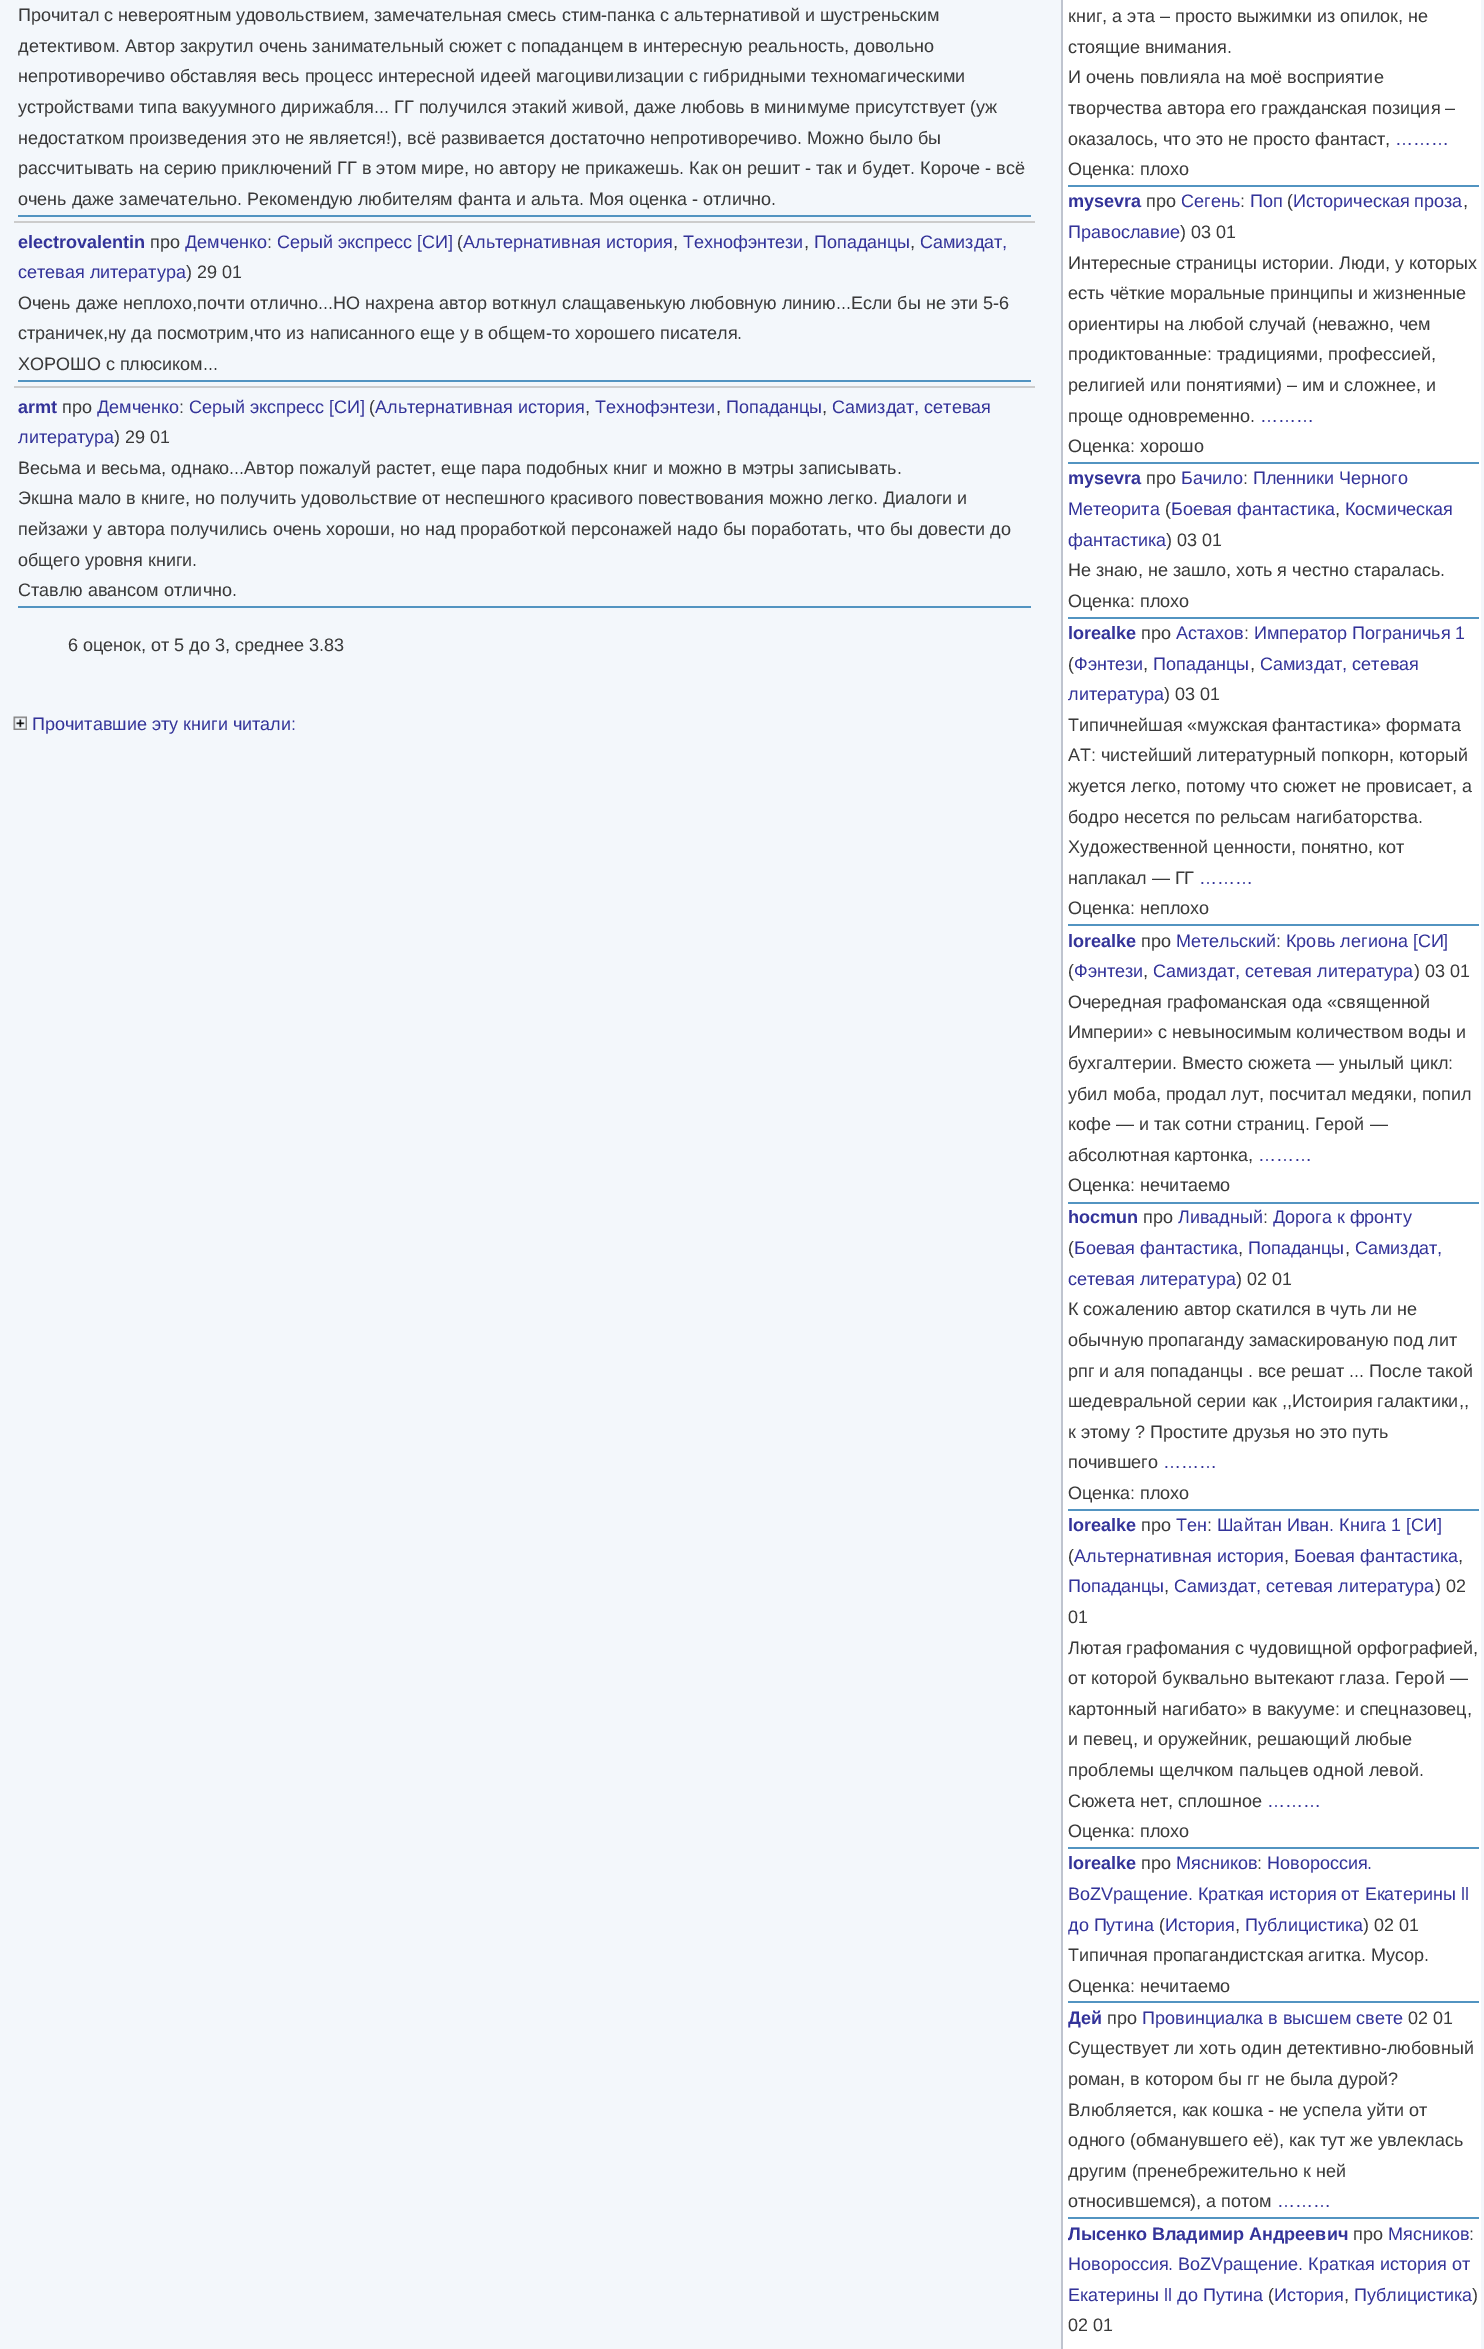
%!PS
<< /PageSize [1484 2349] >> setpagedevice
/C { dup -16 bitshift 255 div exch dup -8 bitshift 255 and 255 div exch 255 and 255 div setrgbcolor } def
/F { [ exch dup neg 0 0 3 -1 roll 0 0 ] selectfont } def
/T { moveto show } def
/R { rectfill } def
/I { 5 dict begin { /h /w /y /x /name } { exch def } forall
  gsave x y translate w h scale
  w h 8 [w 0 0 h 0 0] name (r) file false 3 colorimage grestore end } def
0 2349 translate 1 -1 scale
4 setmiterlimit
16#F3F7FB C
0 0 1484 2349 R
/LiberationSans-Regular 18 F
16#393939 C
(Прочитал с невероятным удовольствием, замечательная смесь стим-панка с альтернативой и шустреньским) 18 21 T
(детективом. Автор закрутил очень занимательный сюжет с попаданцем в интересную реальность, довольно) 18 52 T
(непротиворечиво обставляя весь процесс интересной идеей магоцивилизации с гибридными техномагическими) 18 82 T
(устройствами типа вакуумного дирижабля... ГГ получился этакий живой, даже любовь в минимуме присутствует \(уж) 18 113 T
(недостатком произведения это не является!\), всё развивается достаточно непротиворечиво. Можно было бы) 18 144 T
(рассчитывать на серию приключений ГГ в этом мире, но автору не прикажешь. Как он решит - так и будет. Короче - всё) 18 174 T
(очень даже замечательно. Рекомендую любителям фанта и альта. Моя оценка - отлично.) 18 205 T
16#5294C1 C
18 215 1013 2 R
16#CCCCCC C
14 221 1021 2 R
/LiberationSans-Bold 18 F
16#333399 C
(electrovalentin) 18 248 T
/LiberationSans-Regular 18 F
16#393939 C
(про) 150 248 T
16#333399 C
(Демченко) 185 248 T
16#393939 C
(:) 267 248 T
16#333399 C
(Серый экспресс [СИ]) 277 248 T
16#393939 C
(\() 457 248 T
16#333399 C
(Альтернативная история) 463 248 T
(Технофэнтези) 683 248 T
(Попаданцы) 814 248 T
(Самиздат,) 920 248 T
16#393939 C
(,) 673 248 T
(,) 804 248 T
(,) 910 248 T
16#333399 C
(сетевая литература) 18 278 T
16#393939 C
(\) 29 01) 186 278 T
(Очень даже неплохо,почти отлично...НО нахрена автор воткнул слащавенькую любовную линию...Если бы не эти 5-6) 18 309 T
(страничек,ну да посмотрим,что из написанного еще у в общем-то хорошего писателя.) 18 339 T
(ХОРОШО с плюсиком...) 18 370 T
16#5294C1 C
18 380 1013 2 R
16#CCCCCC C
14 386 1021 2 R
/LiberationSans-Bold 18 F
16#333399 C
(armt) 18 413 T
/LiberationSans-Regular 18 F
16#393939 C
(про) 62 413 T
16#333399 C
(Демченко) 97 413 T
16#393939 C
(:) 179 413 T
16#333399 C
(Серый экспресс [СИ]) 189 413 T
16#393939 C
(\() 369 413 T
16#333399 C
(Альтернативная история) 375 413 T
(Технофэнтези) 595 413 T
(Попаданцы) 726 413 T
(Самиздат, сетевая) 832 413 T
16#393939 C
(,) 585 413 T
(,) 716 413 T
(,) 822 413 T
16#333399 C
(литература) 18 443 T
16#393939 C
(\) 29 01) 114 443 T
(Весьма и весьма, однако...Автор пожалуй растет, еще пара подобных книг и можно в мэтры записывать.) 18 474 T
(Экшна мало в книге, но получить удовольствие от неспешного красивого повествования можно легко. Диалоги и) 18 504 T
(пейзажи у автора получились очень хороши, но над проработкой персонажей надо бы поработать, что бы довести до) 18 535 T
(общего уровня книги.) 18 566 T
(Ставлю авансом отлично.) 18 596 T
16#5294C1 C
18 606 1013 2 R
16#393939 C
(6 оценок, от 5 до 3, среднее 3.83) 68 651 T
(1.rgb) 13 716 14 14 I
16#333399 C
(Прочитавшие эту книги читали:) 32 730 T
16#FFFFFF C
1063 0 418 2349 R
16#BFC4CF C
1061 0 2 2349 R
16#393939 C
(книг, а эта – просто выжимки из опилок, не) 1068 22 T
(стоящие внимания.) 1068 53 T
(И очень повлияла на моё восприятие) 1068 83 T
(творчества автора его гражданская позиция –) 1068 114 T
(оказалось, что это не просто фантаст,) 1068 145 T
16#333399 C
(………) 1395 145 T
16#393939 C
(Оценка: плохо) 1068 175 T
16#5294C1 C
1068 185 411 2 R
/LiberationSans-Bold 18 F
16#333399 C
(mysevra) 1068 207 T
/LiberationSans-Regular 18 F
16#393939 C
(про) 1146 207 T
16#333399 C
(Сегень) 1181 207 T
16#393939 C
(:) 1240 207 T
16#333399 C
(Поп) 1250 207 T
16#393939 C
(\() 1287 207 T
16#333399 C
(Историческая проза) 1293 207 T
16#393939 C
(,) 1463 207 T
16#333399 C
(Православие) 1068 238 T
16#393939 C
(\) 03 01) 1180 238 T
(Интересные страницы истории. Люди, у которых) 1068 269 T
(есть чёткие моральные принципы и жизненные) 1068 299 T
(ориентиры на любой случай \(неважно, чем) 1068 330 T
(продиктованные: традициями, профессией,) 1068 360 T
(религией или понятиями\) – им и сложнее, и) 1068 391 T
(проще одновременно.) 1068 422 T
16#333399 C
(………) 1260 422 T
16#393939 C
(Оценка: хорошо) 1068 452 T
16#5294C1 C
1068 462 411 2 R
/LiberationSans-Bold 18 F
16#333399 C
(mysevra) 1068 484 T
/LiberationSans-Regular 18 F
16#393939 C
(про) 1146 484 T
16#333399 C
(Бачило) 1181 484 T
16#393939 C
(:) 1243 484 T
16#333399 C
(Пленники Черного) 1253 484 T
(Метеорита) 1068 515 T
16#393939 C
(\() 1165 515 T
16#333399 C
(Боевая фантастика) 1171 515 T
16#393939 C
(,) 1335 515 T
16#333399 C
(Космическая) 1345 515 T
(фантастика) 1068 546 T
16#393939 C
(\) 03 01) 1166 546 T
(Не знаю, не зашло, хоть я честно старалась.) 1068 576 T
(Оценка: плохо) 1068 607 T
16#5294C1 C
1068 617 411 2 R
/LiberationSans-Bold 18 F
16#333399 C
(lorealke) 1068 639 T
/LiberationSans-Regular 18 F
16#393939 C
(про) 1141 639 T
16#333399 C
(Астахов) 1176 639 T
16#393939 C
(:) 1244 639 T
16#333399 C
(Император Пограничья 1) 1254 639 T
16#393939 C
(\() 1068 670 T
16#333399 C
(Фэнтези) 1074 670 T
16#393939 C
(,) 1143 670 T
16#333399 C
(Попаданцы) 1153 670 T
16#393939 C
(,) 1250 670 T
16#333399 C
(Самиздат, сетевая) 1260 670 T
(литература) 1068 700 T
16#393939 C
(\) 03 01) 1164 700 T
(Типичнейшая «мужская фантастика» формата) 1068 731 T
(АТ: чистейший литературный попкорн, который) 1068 761 T
(жуется легко, потому что сюжет не провисает, а) 1068 792 T
(бодро несется по рельсам нагибаторства.) 1068 823 T
(Художественной ценности, понятно, кот) 1068 853 T
(наплакал — ГГ) 1068 884 T
16#333399 C
(………) 1199 884 T
16#393939 C
(Оценка: неплохо) 1068 914 T
16#5294C1 C
1068 924 411 2 R
/LiberationSans-Bold 18 F
16#333399 C
(lorealke) 1068 947 T
/LiberationSans-Regular 18 F
16#393939 C
(про) 1141 947 T
16#333399 C
(Метельский) 1176 947 T
16#393939 C
(:) 1276 947 T
16#333399 C
(Кровь легиона [СИ]) 1286 947 T
16#393939 C
(\() 1068 977 T
16#333399 C
(Фэнтези) 1074 977 T
16#393939 C
(,) 1143 977 T
16#333399 C
(Самиздат, сетевая литература) 1153 977 T
16#393939 C
(\) 03 01) 1414 977 T
(Очередная графоманская ода «священной) 1068 1008 T
(Империи» с невыносимым количеством воды и) 1068 1038 T
(бухгалтерии. Вместо сюжета — унылый цикл:) 1068 1069 T
(убил моба, продал лут, посчитал медяки, попил) 1068 1100 T
(кофе — и так сотни страниц. Герой —) 1068 1130 T
(абсолютная картонка,) 1068 1161 T
16#333399 C
(………) 1258 1161 T
16#393939 C
(Оценка: нечитаемо) 1068 1191 T
16#5294C1 C
1068 1202 411 2 R
/LiberationSans-Bold 18 F
16#333399 C
(hocmun) 1068 1223 T
/LiberationSans-Regular 18 F
16#393939 C
(про) 1143 1223 T
16#333399 C
(Ливадный) 1178 1223 T
16#393939 C
(:) 1263 1223 T
16#333399 C
(Дорога к фронту) 1273 1223 T
16#393939 C
(\() 1068 1254 T
16#333399 C
(Боевая фантастика) 1074 1254 T
16#393939 C
(,) 1238 1254 T
16#333399 C
(Попаданцы) 1248 1254 T
16#393939 C
(,) 1345 1254 T
16#333399 C
(Самиздат,) 1355 1254 T
(сетевая литература) 1068 1285 T
16#393939 C
(\) 02 01) 1236 1285 T
(К сожалению автор скатился в чуть ли не) 1068 1315 T
(обычную пропаганду замаскированую под лит) 1068 1346 T
(рпг и аля попаданцы . все решат ... После такой) 1068 1377 T
(шедевральной серии как ,,Истоирия галактики,,) 1068 1407 T
(к этому ? Простите друзья но это путь) 1068 1438 T
(почившего) 1068 1468 T
16#333399 C
(………) 1163 1468 T
16#393939 C
(Оценка: плохо) 1068 1499 T
16#5294C1 C
1068 1509 411 2 R
/LiberationSans-Bold 18 F
16#333399 C
(lorealke) 1068 1531 T
/LiberationSans-Regular 18 F
16#393939 C
(про) 1141 1531 T
16#333399 C
(Тен) 1176 1531 T
16#393939 C
(:) 1207 1531 T
16#333399 C
(Шайтан Иван. Книга 1 [СИ]) 1217 1531 T
16#393939 C
(\() 1068 1562 T
16#333399 C
(Альтернативная история) 1074 1562 T
16#393939 C
(,) 1284 1562 T
16#333399 C
(Боевая фантастика) 1294 1562 T
16#393939 C
(,) 1458 1562 T
16#333399 C
(Попаданцы) 1068 1592 T
16#393939 C
(,) 1164 1592 T
16#333399 C
(Самиздат, сетевая литература) 1174 1592 T
16#393939 C
(\) 02) 1435 1592 T
(01) 1068 1623 T
(Лютая графомания с чудовищной орфографией,) 1068 1654 T
(от которой буквально вытекают глаза. Герой —) 1068 1684 T
(картонный нагибато» в вакууме: и спецназовец,) 1068 1715 T
(и певец, и оружейник, решающий любые) 1068 1745 T
(проблемы щелчком пальцев одной левой.) 1068 1776 T
(Сюжета нет, сплошное) 1068 1807 T
16#333399 C
(………) 1267 1807 T
16#393939 C
(Оценка: плохо) 1068 1837 T
16#5294C1 C
1068 1847 411 2 R
/LiberationSans-Bold 18 F
16#333399 C
(lorealke) 1068 1869 T
/LiberationSans-Regular 18 F
16#393939 C
(про) 1141 1869 T
16#333399 C
(Мясников) 1176 1869 T
16#393939 C
(:) 1257 1869 T
16#333399 C
(Новороссия.) 1267 1869 T
(ВоZVращение. Краткая история от Екатерины ll) 1068 1900 T
(до Путина) 1068 1931 T
16#393939 C
(\() 1159 1931 T
16#333399 C
(История) 1165 1931 T
16#393939 C
(,) 1235 1931 T
16#333399 C
(Публицистика) 1245 1931 T
16#393939 C
(\) 02 01) 1363 1931 T
(Типичная пропагандистская агитка. Мусор.) 1068 1961 T
(Оценка: нечитаемо) 1068 1992 T
16#5294C1 C
1068 2001 411 2 R
/LiberationSans-Bold 18 F
16#333399 C
(Дей) 1068 2024 T
/LiberationSans-Regular 18 F
16#393939 C
(про) 1107 2024 T
16#333399 C
(Провинциалка в высшем свете) 1142 2024 T
16#393939 C
(02 01) 1408 2024 T
(Существует ли хоть один детективно-любовный) 1068 2054 T
(роман, в котором бы гг не была дурой?) 1068 2085 T
(Влюбляется, как кошка - не успела уйти от) 1068 2116 T
(одного \(обманувшего её\), как тут же увлеклась) 1068 2146 T
(другим \(пренебрежительно к ней) 1068 2177 T
(относившемся\), а потом) 1068 2207 T
16#333399 C
(………) 1277 2207 T
16#5294C1 C
1068 2217 411 2 R
/LiberationSans-Bold 18 F
16#333399 C
(Лысенко Владимир Андреевич) 1068 2240 T
/LiberationSans-Regular 18 F
16#393939 C
(про) 1353 2240 T
16#333399 C
(Мясников) 1388 2240 T
16#393939 C
(:) 1469 2240 T
16#333399 C
(Новороссия. ВоZVращение. Краткая история от) 1068 2270 T
(Екатерины ll до Путина) 1068 2301 T
16#393939 C
(\() 1268 2301 T
16#333399 C
(История) 1274 2301 T
16#393939 C
(,) 1344 2301 T
16#333399 C
(Публицистика) 1354 2301 T
16#393939 C
(\)) 1472 2301 T
(02 01) 1068 2331 T
showpage
